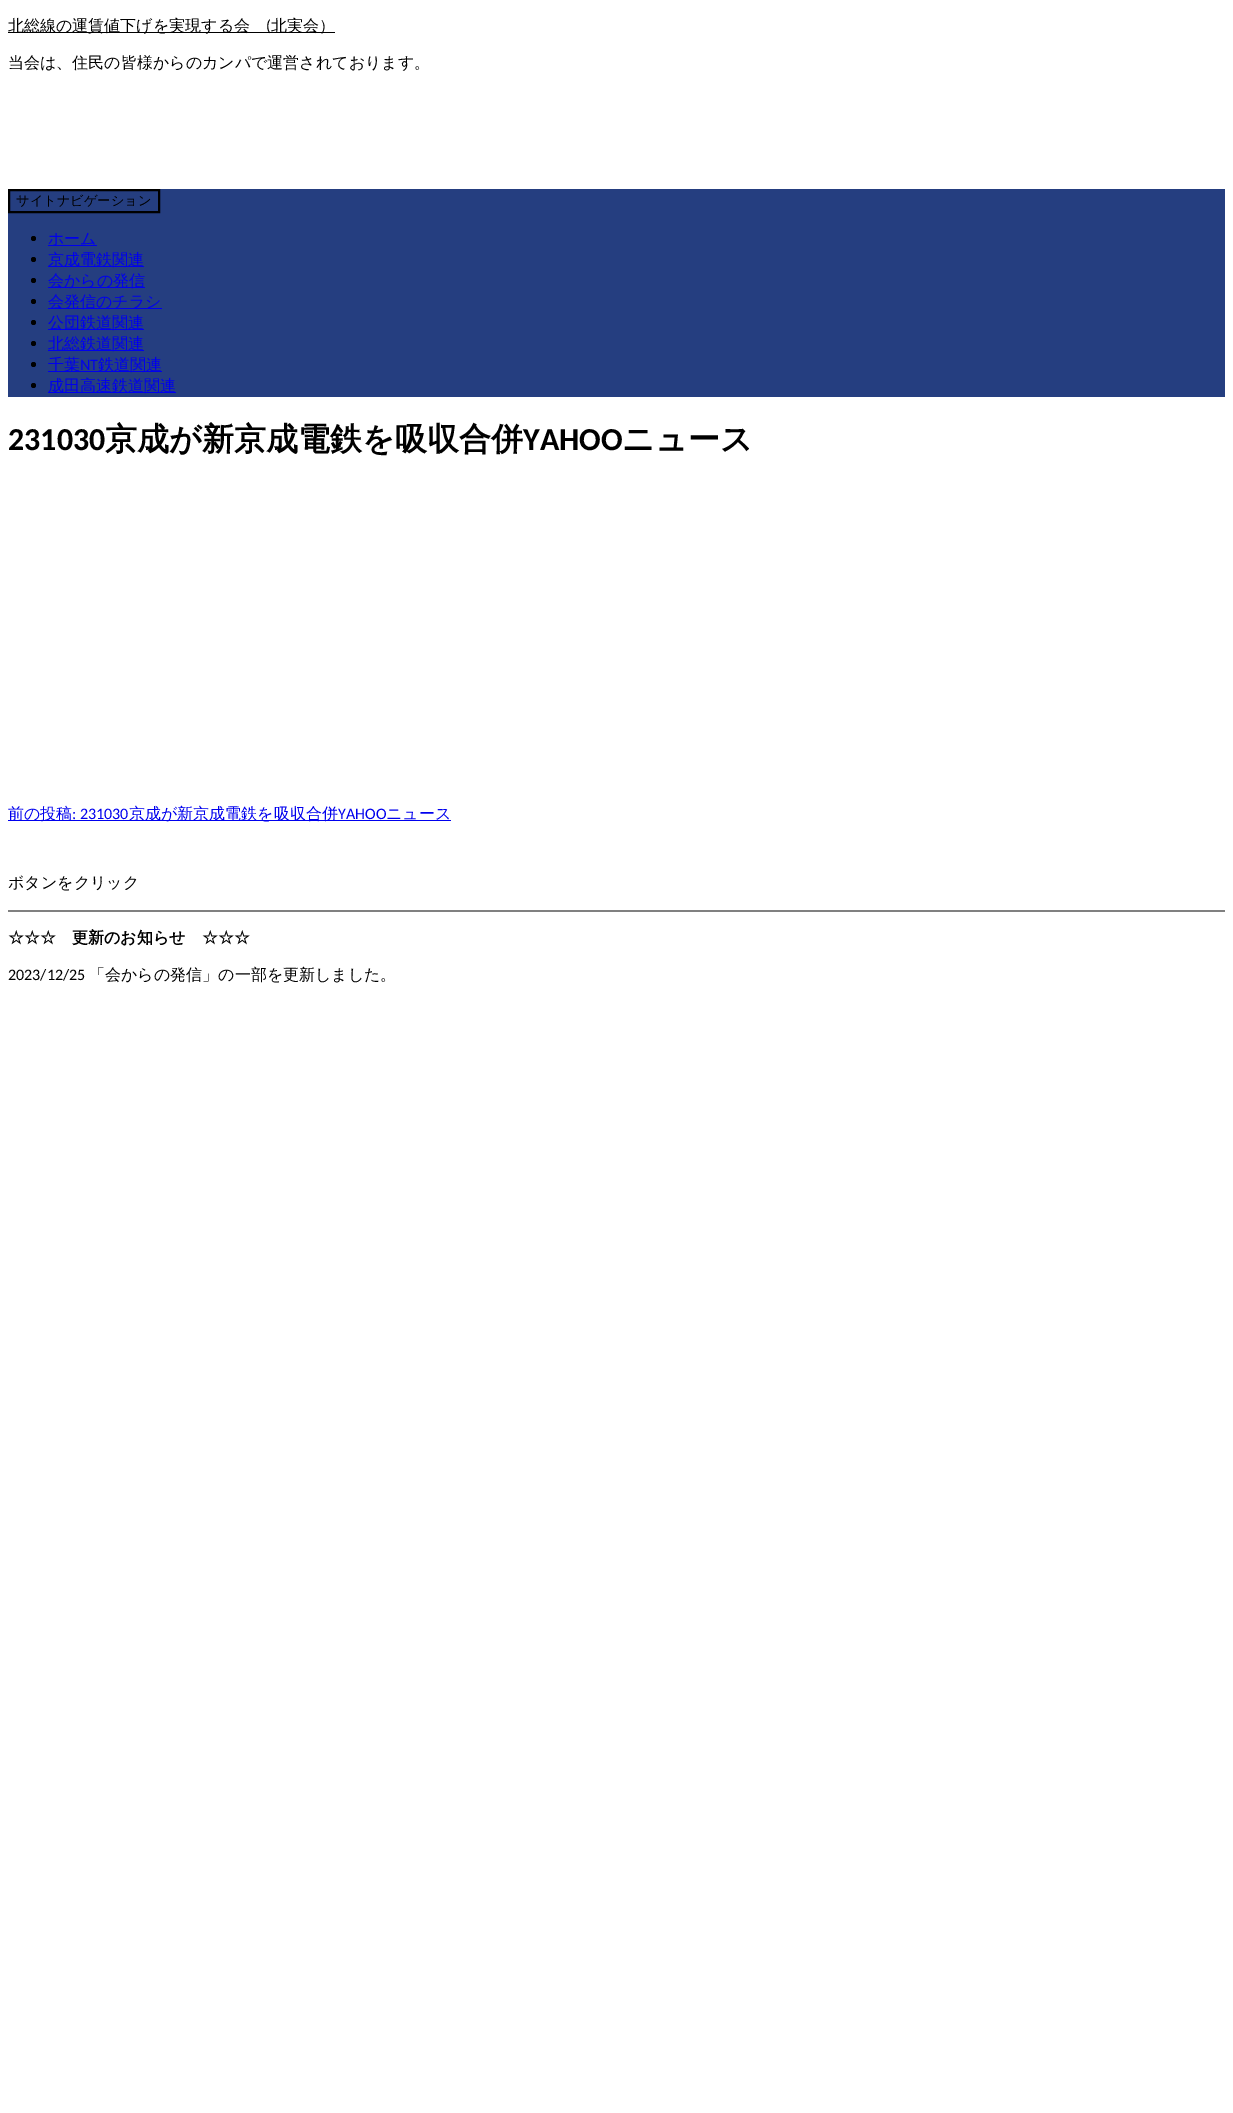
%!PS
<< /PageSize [1233 2113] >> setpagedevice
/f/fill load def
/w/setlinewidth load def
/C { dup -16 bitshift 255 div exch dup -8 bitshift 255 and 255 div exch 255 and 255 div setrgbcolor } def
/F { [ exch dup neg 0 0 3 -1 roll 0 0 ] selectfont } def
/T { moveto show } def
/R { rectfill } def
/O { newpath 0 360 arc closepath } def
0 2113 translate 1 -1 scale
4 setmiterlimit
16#FFFFFF C
0 0 1233 2113 R
16#000000 C
8 32 327 1 R
/WenQuanYiZenHei-Medium 16 F
(北総線の運賃値下げを実現する会) 8 31 T
/Carlito-Regular 16 F
(\() 266 31 T
/WenQuanYiZenHei-Medium 16 F
(北実会）) 271 31 T
(当会は、住民の皆様からのカンパで運営されております。) 8 68 T
16#253E80 C
8 189 1217 208 R
16#000000 C
2 w
9 190 150 22 rectstroke
/WenQuanYiZenHei-Medium 13.25 F
(サイトナビゲーション) 16 205 T
33.5 238.5 2.5 O f
16#0000EE C
48 245 49 1 R
/WenQuanYiZenHei-Medium 16 F
(ホーム) 48 244 T
16#000000 C
33.5 259.5 2.5 O f
16#0000EE C
48 266 96 1 R
(京成電鉄関連) 48 265 T
16#000000 C
33.5 280.5 2.5 O f
16#0000EE C
48 287 97 1 R
(会からの発信) 48 286 T
16#000000 C
33.5 301.5 2.5 O f
16#0000EE C
48 308 114 1 R
(会発信のチラシ) 48 307 T
16#000000 C
33.5 322.5 2.5 O f
16#0000EE C
48 329 96 1 R
(公団鉄道関連) 48 328 T
16#000000 C
33.5 343.5 2.5 O f
16#0000EE C
48 350 96 1 R
(北総鉄道関連) 48 349 T
16#000000 C
33.5 364.5 2.5 O f
16#0000EE C
48 371 114 1 R
(千葉) 48 370 T
/Carlito-Regular 16 F
(NT) 80 370 T
/WenQuanYiZenHei-Medium 16 F
(鉄道関連) 98 370 T
16#000000 C
33.5 385.5 2.5 O f
16#0000EE C
48 392 128 1 R
(成田高速鉄道関連) 48 391 T
/Carlito-Bold 32 F
16#000000 C
(231030) 8 450 T
/WenQuanYiZenHei-Bold 32 F
(京成が新京成電鉄を吸収合併) 105 450 T
/Carlito-Bold 32 F
(YAHOO) 523 450 T
/WenQuanYiZenHei-Bold 32 F
(ニュース) 622 450 T
16#0000EE C
8 820 443 1 R
/WenQuanYiZenHei-Medium 16 F
(前の投稿) 8 819 T
/Carlito-Regular 16 F
(: 231030) 72 819 T
/WenQuanYiZenHei-Medium 16 F
(京成が新京成電鉄を吸収合併) 129 819 T
/Carlito-Regular 16 F
(YAHOO) 338 819 T
/WenQuanYiZenHei-Medium 16 F
(ニュース) 386 819 T
16#000000 C
(ボタンをクリック) 8 888 T
16#808080 C
8 910 1217 2 R
/WenQuanYiZenHei-Bold 16 F
16#000000 C
(☆☆☆　更新のお知らせ　☆☆☆) 8 943 T
/Carlito-Regular 16 F
(2023/12/25) 8 980 T
/WenQuanYiZenHei-Medium 16 F
(「会からの発信」の一部を更新しました。) 89 980 T
showpage
